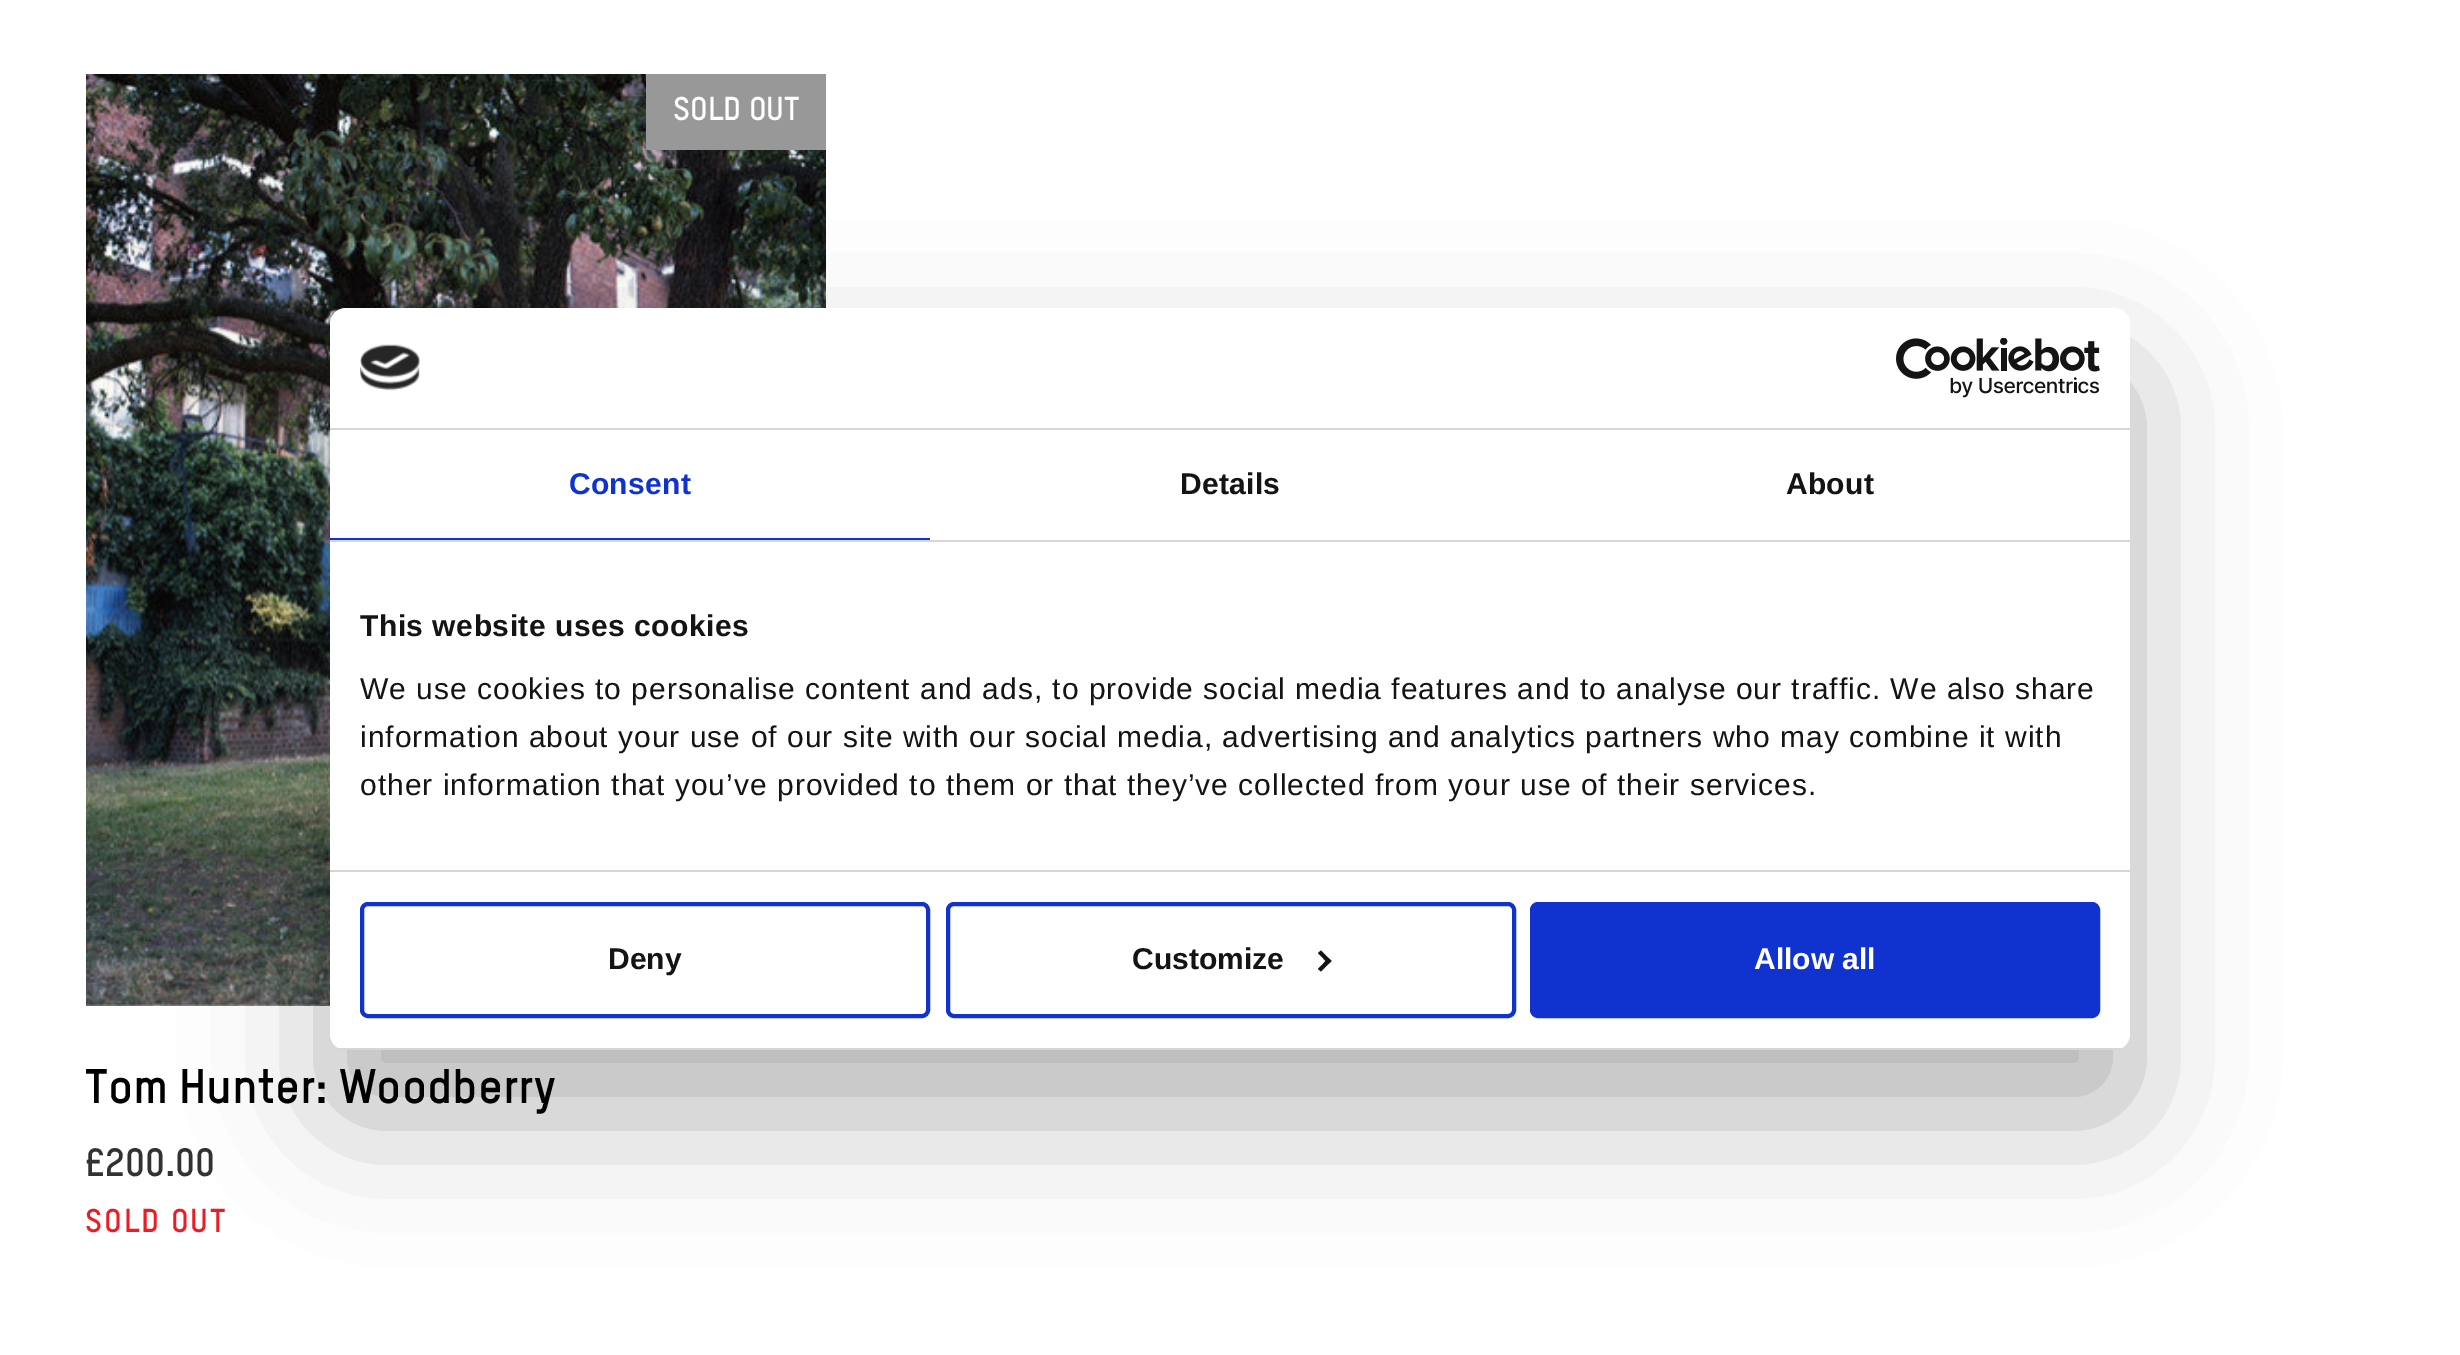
%!PS
<< /PageSize [2460 1355] /PageUsesTransparency true >> setpagedevice
/m/moveto load def
/l/rlineto load def
/z/closepath load def
/f/fill load def
/s/stroke load def
/q/gsave load def
/Q_/grestore load def
/w/setlinewidth load def
/C { dup -16 bitshift 255 div exch dup -8 bitshift 255 and 255 div exch 255 and 255 div setrgbcolor } def
/F { [ exch dup neg 0 0 3 -1 roll 0 0 ] selectfont } def
/T { moveto show } def
/R { rectfill } def
/A { dup .setfillconstantalpha .setstrokeconstantalpha } def
/Q { 5 dict begin { /r /h /w /y /x } { exch def } forall
  x r add y moveto x w add y 2 copy h add r arct x w add y h add x 1 index r arct
  x y h add x y r arct x y 2 copy exch w add exch r arct closepath end } def
/S { 12 dict begin { /a /b /q /h /w /y /x } { exch def } forall gsave /was 0 def
  9 -2 -9 { dup b mul 4 div /e exch def 1 sub .425 mul 2.718 exch exp 1 add a .99 .min exch div /now exch def
    1 1 now sub 1 was sub div sub A /was now def
    w h .min e 2 mul add 0 gt { x e sub y e sub w e 2 mul add h e 2 mul add
      q e add b .6 mul add w h .min 2 div e add .min 0 .max Q fill } if } for grestore end } def
/I { 5 dict begin { /h /w /y /x /name } { exch def } forall
  gsave x y translate w h scale
  w h 8 [w 0 0 h 0 0] name (r) file false 3 colorimage grestore end } def
0 .pushpdf14devicefilter
0 1355 translate 1 -1 scale
4 setmiterlimit
16#FFFFFF C
0 0 2460 1355 R
(1.rgb) 86 74 740 932 I
16#989898 C
646 74 180 76 R
/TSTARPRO-Bold 32.5 F
16#FFFFFF C
(SOLD OUT) 673 120 T
/TSTARPRO-Bold 47.6 F
16#000000 C
(Tom Hunter: Woodberry) 85 1103 T
/TSTARPRO-Bold 39 F
16#333232 C
(£200.00) 85 1176 T
/TSTARPRO-Bold 32.5 F
16#ED1C24 C
85 1232 m 2 0 (SOLD OUT) ashow
16#000000 C
330 372 1800 742 16 68 .3 S
16#FFFFFF C
330 308 1800 742 16 Q f
16#D6D6D6 C
330 428 1800 2 R
(2.rgb) 360 344 60 47 I
(3.rgb) 1896 338 204 60 I
330 540 1800 2 R
16#1032CF C
330 538 600 2 R
/LiberationSans-Bold 30 F
569 494 m .25 0 (Consent) ashow
16#141414 C
1180 494 m .25 0 (Details) ashow
1786 494 m .25 0 (About) ashow
16#D6D6D6 C
330 870 1800 2 R
16#141414 C
360 636 m .5 0 (This website uses cookies) ashow
/LiberationSans-Regular 30 F
360 699 m 1 0 (We use cookies to personalise content and ads, to provide social media features and to analyse our traffic. We also share) ashow
360 747 m 1 0 (information about your use of our site with our social media, advertising and analytics partners who may combine it with) ashow
360 795 m 1 0 (other information that you’ve provided to them or that they’ve collected from your use of their services.) ashow
q
330 308 1800 742 16 Q clip newpath
16#D6D6D6 C
330 1048 1800 2 R
Q_
16#1032CF C
4 w
362 904 566 112 6 Q s
/LiberationSans-Bold 30 F
16#141414 C
(Deny) 608 969 T
16#1032CF C
948 904 566 112 6 Q s
16#141414 C
(Customize) 1132 969 T
1321 950.5 m 10.5 10.5 l -3 3 l -10.5 -11 l z f
1328.5 958 m 3 3 l -10.5 10.5 l -3 -2.5 l z f
16#1032CF C
1532 904 566 112 6 Q q f Q_
s
16#FFFFFF C
(Allow all) 1754 969 T
.poppdf14devicefilter showpage
